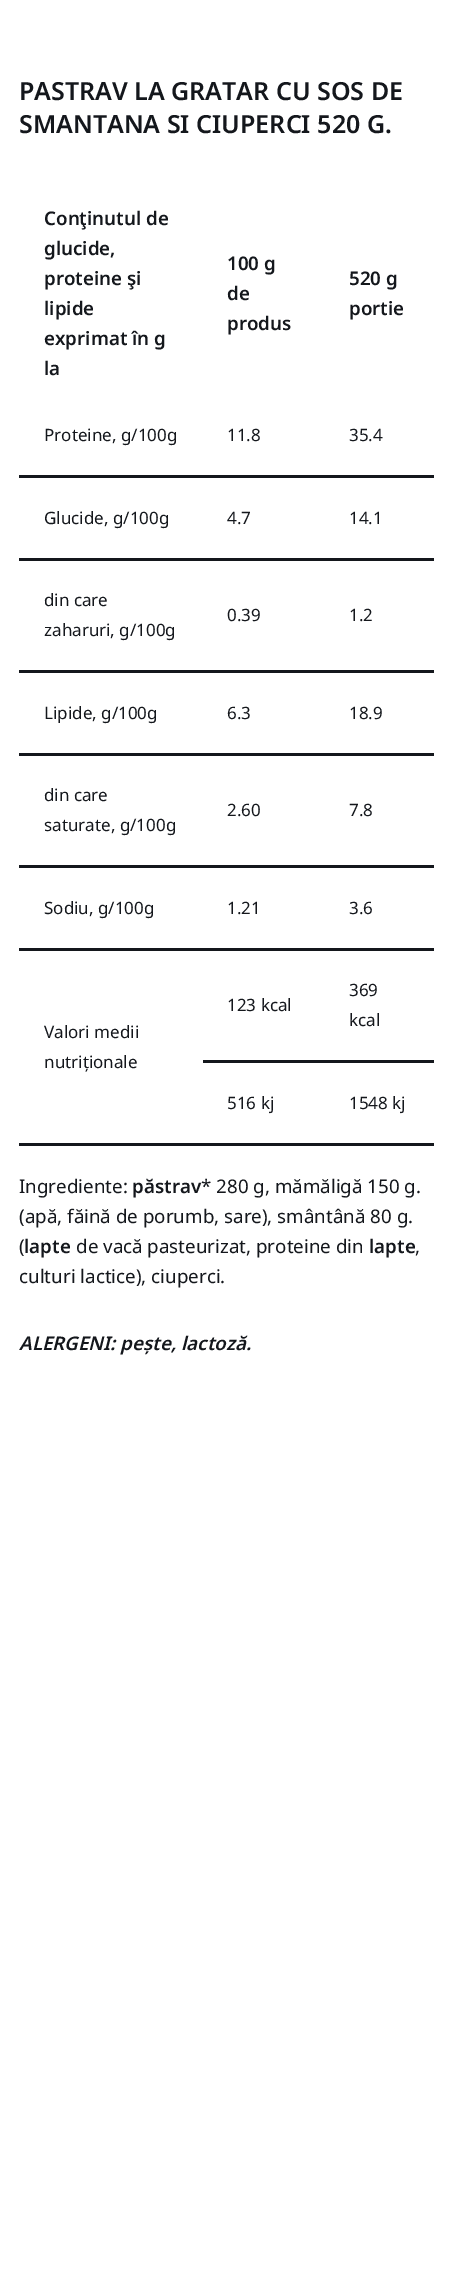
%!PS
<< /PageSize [452 2275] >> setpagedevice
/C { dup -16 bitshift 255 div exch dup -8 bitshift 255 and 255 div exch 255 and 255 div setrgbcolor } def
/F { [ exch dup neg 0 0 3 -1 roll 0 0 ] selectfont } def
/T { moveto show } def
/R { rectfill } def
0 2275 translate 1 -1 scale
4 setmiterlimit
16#FFFFFF C
0 0 452 2275 R
/NotoSans-SemiBold 25 F
16#14171C C
(PASTRAV LA GRATAR CU SOS DE) 19 100 T
(SMANTANA SI CIUPERCI 520 G.) 19 133 T
/NotoSans-SemiBold 18.75 F
(Conţinutul de) 44 225 T
(glucide,) 44 255 T
(proteine şi) 44 285 T
(lipide) 44 315 T
(exprimat în g) 44 345 T
(la) 44 375 T
(100 g) 227 270 T
(de) 227 300 T
(produs) 227 330 T
(520 g) 349 285 T
(portie) 349 315 T
19 475 415 3 R
/NotoSans-Regular 17 F
(Proteine, g/100g) 44 441 T
(11.8) 227 441 T
(35.4) 349 441 T
19 558 415 3 R
(Glucide, g/100g) 44 524 T
(4.7) 227 524 T
(14.1) 349 524 T
19 670 415 3 R
(din care) 44 606 T
(zaharuri, g/100g) 44 636 T
(0.39) 227 621 T
(1.2) 349 621 T
19 753 415 3 R
(Lipide, g/100g) 44 719 T
(6.3) 227 719 T
(18.9) 349 719 T
19 865 415 3 R
(din care) 44 801 T
(saturate, g/100g) 44 831 T
(2.60) 227 816 T
(7.8) 349 816 T
19 948 415 3 R
(Sodiu, g/100g) 44 914 T
(1.21) 227 914 T
(3.6) 349 914 T
203 1060 231 3 R
(123 kcal) 227 1011 T
(369) 349 996 T
(kcal) 349 1026 T
19 1143 415 3 R
(Valori medii) 44 1038 T
(nutriționale) 44 1068 T
(516 kj) 227 1109 T
(1548 kj) 349 1109 T
/NotoSans-Regular 18.75 F
(Ingrediente:) 19 1193 T
/NotoSans-SemiBold 18.75 F
(păstrav) 132 1193 T
/NotoSans-Regular 18.75 F
(* 280 g, mămăligă 150 g.) 201 1193 T
(\(apă, făină de porumb, sare\), smântână 80 g.) 19 1223 T
(\() 19 1253 T
/NotoSans-SemiBold 18.75 F
(lapte) 24 1253 T
/NotoSans-Regular 18.75 F
(de vacă pasteurizat, proteine din) 76 1253 T
/NotoSans-SemiBold 18.75 F
(lapte) 369 1253 T
/NotoSans-Regular 18.75 F
(,) 415 1253 T
(culturi lactice\), ciuperci.) 19 1283 T
/NotoSans-SemiBoldItalic 18.75 F
(ALERGENI: pește, lactoză.) 19 1350 T
showpage
